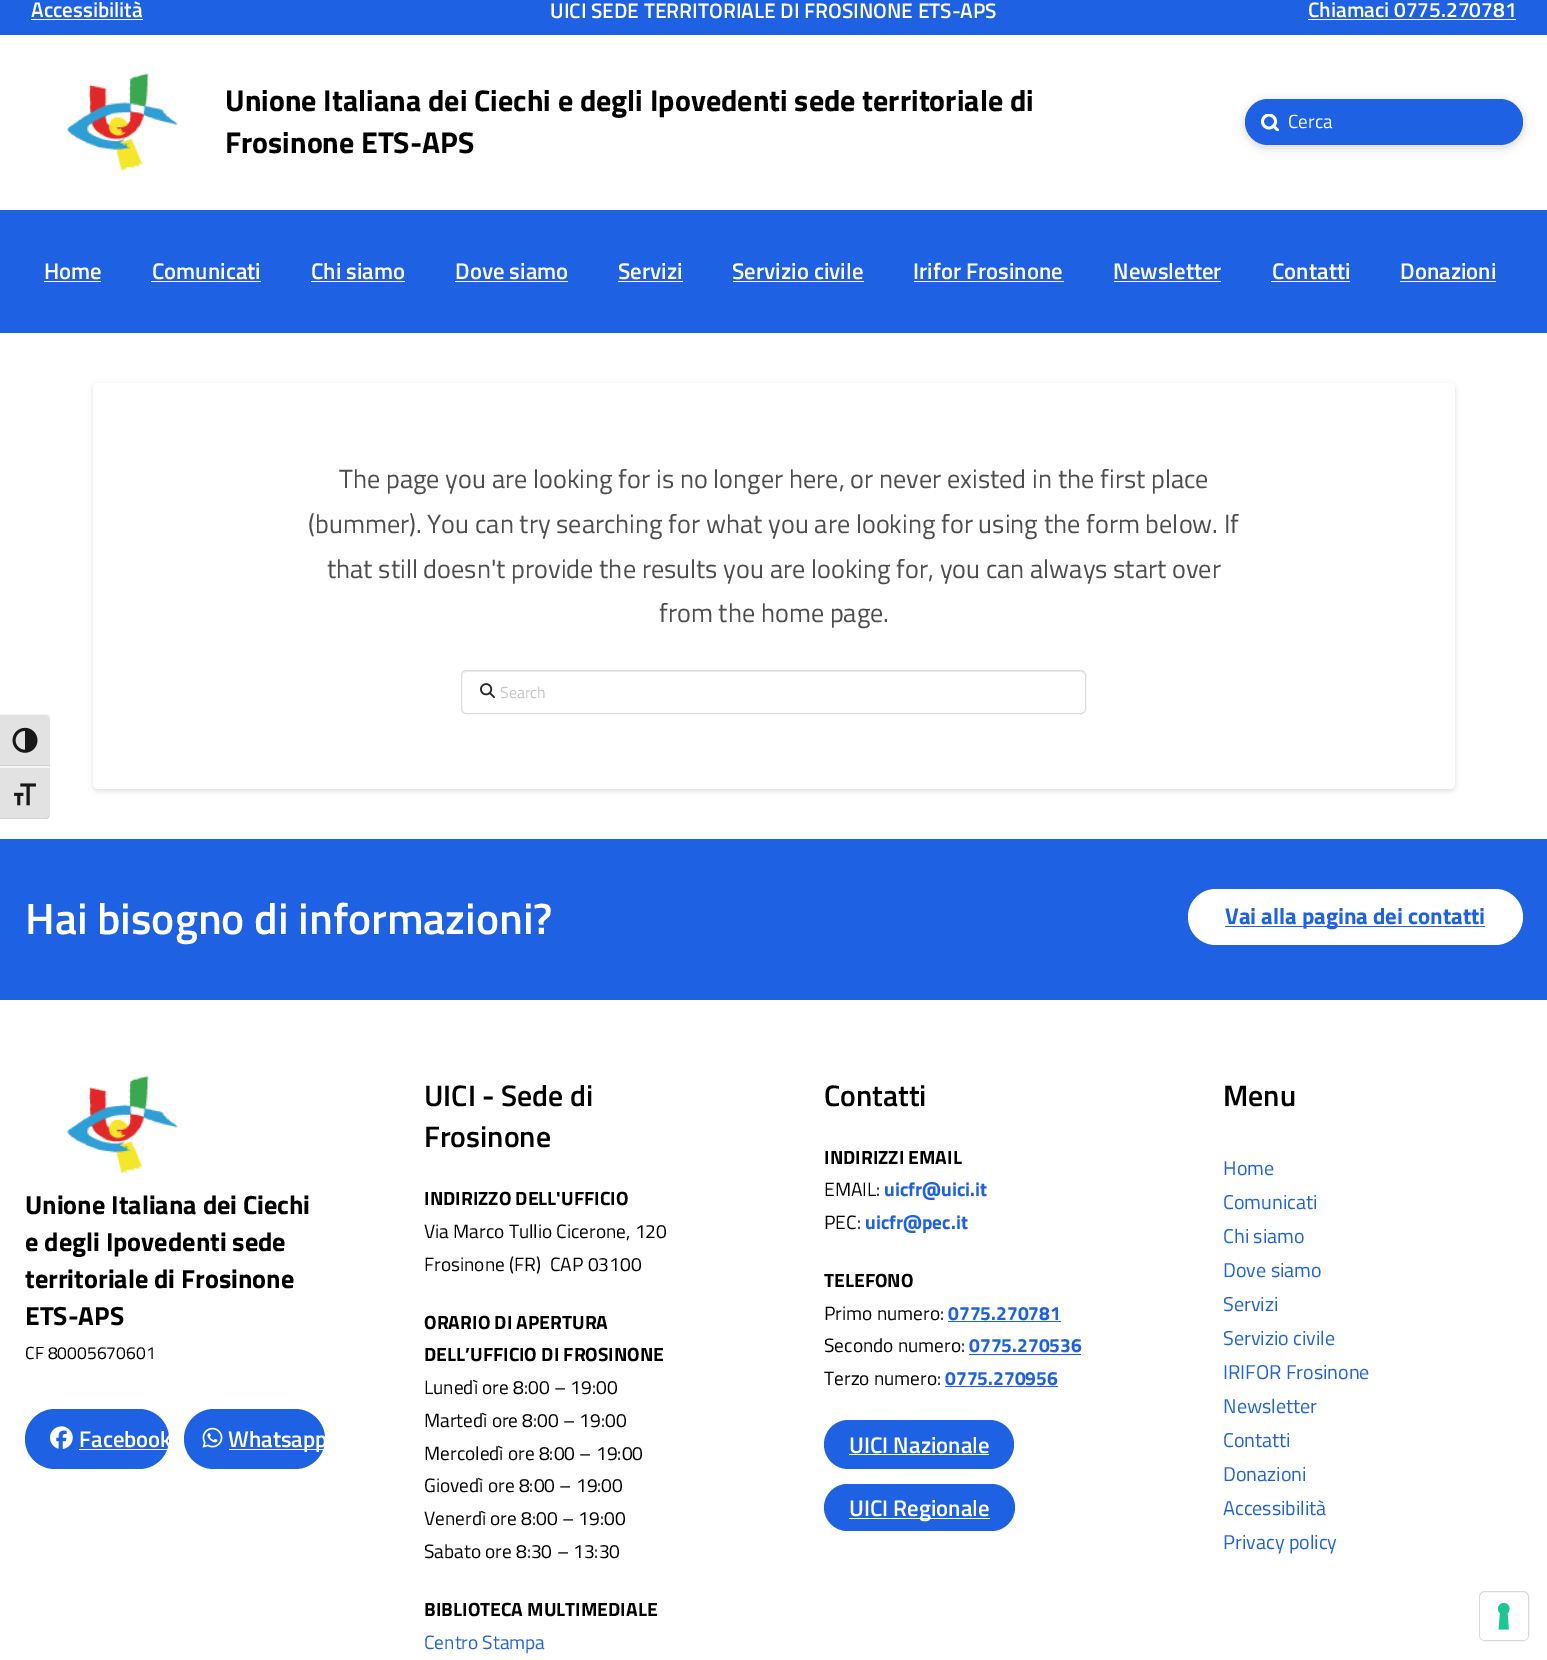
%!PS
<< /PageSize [1547 1660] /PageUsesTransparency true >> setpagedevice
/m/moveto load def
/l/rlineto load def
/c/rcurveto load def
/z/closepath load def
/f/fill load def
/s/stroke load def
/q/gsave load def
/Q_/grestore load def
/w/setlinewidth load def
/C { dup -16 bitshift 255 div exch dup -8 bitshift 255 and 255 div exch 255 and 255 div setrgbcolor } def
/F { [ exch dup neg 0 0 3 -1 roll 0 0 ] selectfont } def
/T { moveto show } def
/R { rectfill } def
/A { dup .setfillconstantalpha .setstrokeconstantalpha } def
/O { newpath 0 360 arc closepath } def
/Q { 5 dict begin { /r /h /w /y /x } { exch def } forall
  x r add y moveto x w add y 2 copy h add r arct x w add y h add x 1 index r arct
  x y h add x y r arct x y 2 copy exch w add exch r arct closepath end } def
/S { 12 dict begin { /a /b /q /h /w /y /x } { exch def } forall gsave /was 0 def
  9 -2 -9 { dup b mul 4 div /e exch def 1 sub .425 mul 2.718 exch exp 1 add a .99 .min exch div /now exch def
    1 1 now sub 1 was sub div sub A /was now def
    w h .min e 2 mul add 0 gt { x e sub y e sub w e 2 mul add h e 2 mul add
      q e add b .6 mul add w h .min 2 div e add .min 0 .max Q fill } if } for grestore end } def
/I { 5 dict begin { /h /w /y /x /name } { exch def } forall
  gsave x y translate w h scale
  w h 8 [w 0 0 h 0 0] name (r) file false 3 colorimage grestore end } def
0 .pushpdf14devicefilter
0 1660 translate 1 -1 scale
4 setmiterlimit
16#FFFFFF C
0 0 1547 1660 R
16#1E61E2 C
0 0 1547 35 R
/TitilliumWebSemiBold-SemiBold 21 F
16#FFFFFF C
(Accessibilità) 31 17 T
31 19 112 1 R
(UICI SEDE TERRITORIALE DI FROSINONE ETS-APS) 550 18 T
(Chiamaci 0775.270781) 1308 17 T
1308 19 208 1 R
(1.rgb) 67 73 111 99 I
/TitilliumWeb-Bold 30 F
16#000000 C
(Unione Italiana dei Ciechi e degli Ipovedenti sede territoriale di) 225 111 T
(Frosinone ETS-APS) 225 153 T
1245 101 278 47 23.5 4.5 .15 S
16#1E61E2 C
1245 99 278 46 23 Q f
q
1261 114 18 17 rectclip
16#FFFFFF C
2.8 w
1269 121.5 6.5 O s
2 setlinecap
1277.5 130 m -4 -4 l s
Q_
/TitilliumWeb-Regular 19 F
16#FFFFFF C
(Cerca) 1288 128 T
16#1E61E2 C
0 210 1547 123 R
/TitilliumWebSemiBold-SemiBold 22.75 F
16#FFFFFF C
(Home) 44 279 T
44 281 57 1 R
(Comunicati) 152 279 T
151 281 110 1 R
(Chi siamo) 311 279 T
311 281 94 1 R
(Dove siamo) 455 279 T
455 281 113 1 R
(Servizi) 618 279 T
618 281 65 1 R
(Servizio civile) 732 279 T
733 281 131 1 R
(Irifor Frosinone) 913 279 T
914 281 150 1 R
(Newsletter) 1113 279 T
1114 281 107 1 R
(Contatti) 1272 279 T
1271 281 79 1 R
(Donazioni) 1400 279 T
1400 281 96 1 R
16#000000 C
93 385 1362 406 5 3 .13 S
16#FFFFFF C
93 383 1362 406 5 Q f
/TitilliumWeb-Regular 26.25 F
16#4E4E4E C
(The page you are looking for is no longer here, or never existed in the first place) 339 488 T
(\(bummer\). You can try searching for what you are looking for using the form below. If) 308 533 T
(that still doesn't provide the results you are looking for, you can always start over) 327 578 T
(from the home page.) 659 622 T
16#ECECEC C
466 672 m 615 0 l 2 0 4 2 4 4 c 0 -1 l 0 -2 -2 -4 -4 -4 c -614 0 l -1 0 -3 1 -3 2 c z f
16#DDDDDD C
461.5 670.5 624 43 4.5 Q s
(2.rgb) 480 683 15 16 I
/TitilliumWeb-Regular 16 F
16#C5C5C5 C
(Search) 500 698 T
16#1E61E2 C
0 839 1547 161 R
/TitilliumWebSemiBold-SemiBold 43.75 F
16#FFFFFF C
(Hai bisogno di informazioni?) 25 934 T
1188 889 335 56 28 Q f
16#1E61E2 C
1225 926 260 1 R
/TitilliumWeb-Bold 22.75 F
(Vai alla pagina dei contatti) 1225 924 T
(3.rgb) 67 1075 111 99 I
/TitilliumWeb-Bold 26.25 F
16#000000 C
(Unione Italiana dei Ciechi) 25 1214 T
(e degli Ipovedenti sede) 25 1251 T
(territoriale di Frosinone) 25 1288 T
(ETS-APS) 25 1325 T
/TitilliumWeb-Regular 17.5 F
(CF 80005670601) 25 1359 T
16#1E61E2 C
25 1409 144 60 30 Q f
(4.rgb) 50 1426 23 23 I
q
25 1409 144 60 30 Q clip newpath
25 1409 144 60 30 Q clip newpath
/TitilliumWebSemiBold-SemiBold 22.75 F
16#FFFFFF C
(Facebook) 79 1447 T
Q_
16#FFFFFF C
79 1449 90 1 R
16#1E61E2 C
184 1409 141 60 30 Q f
(5.rgb) 202 1427 21 21 I
16#FFFFFF C
229 1449 96 1 R
q
184 1409 141 60 30 Q clip newpath
184 1409 141 60 30 Q clip newpath
/TitilliumWebSemiBold-SemiBold 22.75 F
(Whatsapp) 228 1447 T
Q_
/TitilliumWebSemiBold-SemiBold 29.75 F
16#000000 C
(UICI - Sede di) 424 1106 T
(Frosinone) 424 1147 T
/TitilliumWeb-Bold 19.25 F
(INDIRIZZO DELL'UFFICIO) 424 1205 T
/TitilliumWeb-Regular 19.25 F
(Via Marco Tullio Cicerone, 120) 424 1238 T
(Frosinone \(FR\)) 424 1271 T
(CAP 03100) 550 1271 T
/TitilliumWeb-Bold 19.25 F
(ORARIO DI APERTURA) 424 1329 T
(DELL’UFFICIO DI FROSINONE) 424 1361 T
/TitilliumWeb-Regular 19.25 F
(Lunedì ore 8:00 – 19:00) 424 1394 T
(Martedì ore 8:00 – 19:00) 424 1427 T
(Mercoledì ore 8:00 – 19:00) 424 1460 T
(Giovedì ore 8:00 – 19:00) 424 1492 T
(Venerdì ore 8:00 – 19:00) 424 1525 T
(Sabato ore 8:30 – 13:30) 424 1558 T
/TitilliumWeb-Bold 19.25 F
(BIBLIOTECA MULTIMEDIALE) 424 1616 T
/TitilliumWeb-Regular 19.25 F
16#1E61E2 C
(Centro Stampa) 424 1649 T
/TitilliumWebSemiBold-SemiBold 29.75 F
16#000000 C
(Contatti) 824 1106 T
/TitilliumWeb-Bold 19.25 F
(INDIRIZZI EMAIL) 824 1164 T
/TitilliumWeb-Regular 19.25 F
(EMAIL:) 824 1196 T
/TitilliumWeb-Bold 19.25 F
16#1E61E2 C
(uicfr@uici.it) 884 1196 T
/TitilliumWeb-Regular 19.25 F
16#000000 C
(PEC:) 824 1229 T
/TitilliumWeb-Bold 19.25 F
16#1E61E2 C
(uicfr@pec.it) 865 1229 T
16#000000 C
(TELEFONO) 824 1287 T
/TitilliumWeb-Regular 19.25 F
(Primo numero:) 824 1320 T
/TitilliumWeb-Bold 19.25 F
16#1E61E2 C
(0775.270781) 948 1320 T
948 1321 113 1 R
/TitilliumWeb-Regular 19.25 F
16#000000 C
(Secondo numero:) 824 1352 T
/TitilliumWeb-Bold 19.25 F
16#1E61E2 C
(0775.270536) 969 1352 T
969 1354 112 1 R
/TitilliumWeb-Regular 19.25 F
16#000000 C
(Terzo numero:) 824 1385 T
/TitilliumWeb-Bold 19.25 F
16#1E61E2 C
(0775.270956) 945 1385 T
945 1386 113 1 R
824 1420 190 49 24.5 Q f
/TitilliumWebSemiBold-SemiBold 22.75 F
16#FFFFFF C
(UICI Nazionale) 849 1453 T
849 1454 140 1 R
16#1E61E2 C
824 1484 191 47 23.5 Q f
16#FFFFFF C
849 1518 141 1 R
(UICI Regionale) 849 1516 T
/TitilliumWebSemiBold-SemiBold 29.75 F
16#000000 C
(Menu) 1223 1106 T
/TitilliumWeb-Regular 20 F
16#1E61E2 C
(Home) 1223 1175 T
(Comunicati) 1223 1209 T
(Chi siamo) 1223 1243 T
(Dove siamo) 1223 1277 T
(Servizi) 1223 1311 T
(Servizio civile) 1223 1345 T
(IRIFOR Frosinone) 1223 1379 T
(Newsletter) 1223 1413 T
(Contatti) 1223 1447 T
(Donazioni) 1223 1481 T
(Accessibilità) 1223 1515 T
(Privacy policy) 1223 1549 T
16#E2E2E2 C
0 714 m 45 0 l 3 0 5 2 5 5 c 0 47 l -50 0 l z f
16#F5F5F5 C
0 715 m 45 0 l 3 0 5 2 5 4 c 0 -3 -2 -5 -5 -5 c -45 0 l z f
16#D2D2D2 C
0 765 50 1 R
(6.rgb) 12 727 26 26 I
16#E2E2E2 C
0 766 m 50 0 l 0 48 l 0 3 -2 5 -5 5 c -45 0 l z f
16#F5F5F5 C
0 766 50 2 R
16#D2D2D2 C
47 819 m 2 -1 3 -3 3 -5 c 0 2 -2 4 -5 4 c -45 0 l 0 1 l z f
(7.rgb) 14 783 22 23 I
16#D9D9D9 C
1479.5 1591.5 49 49 5.5 Q s
16#FFFFFF C
1480 1593 48 47 5 Q f
(8.rgb) 1497 1602 13 28 I
.poppdf14devicefilter showpage
